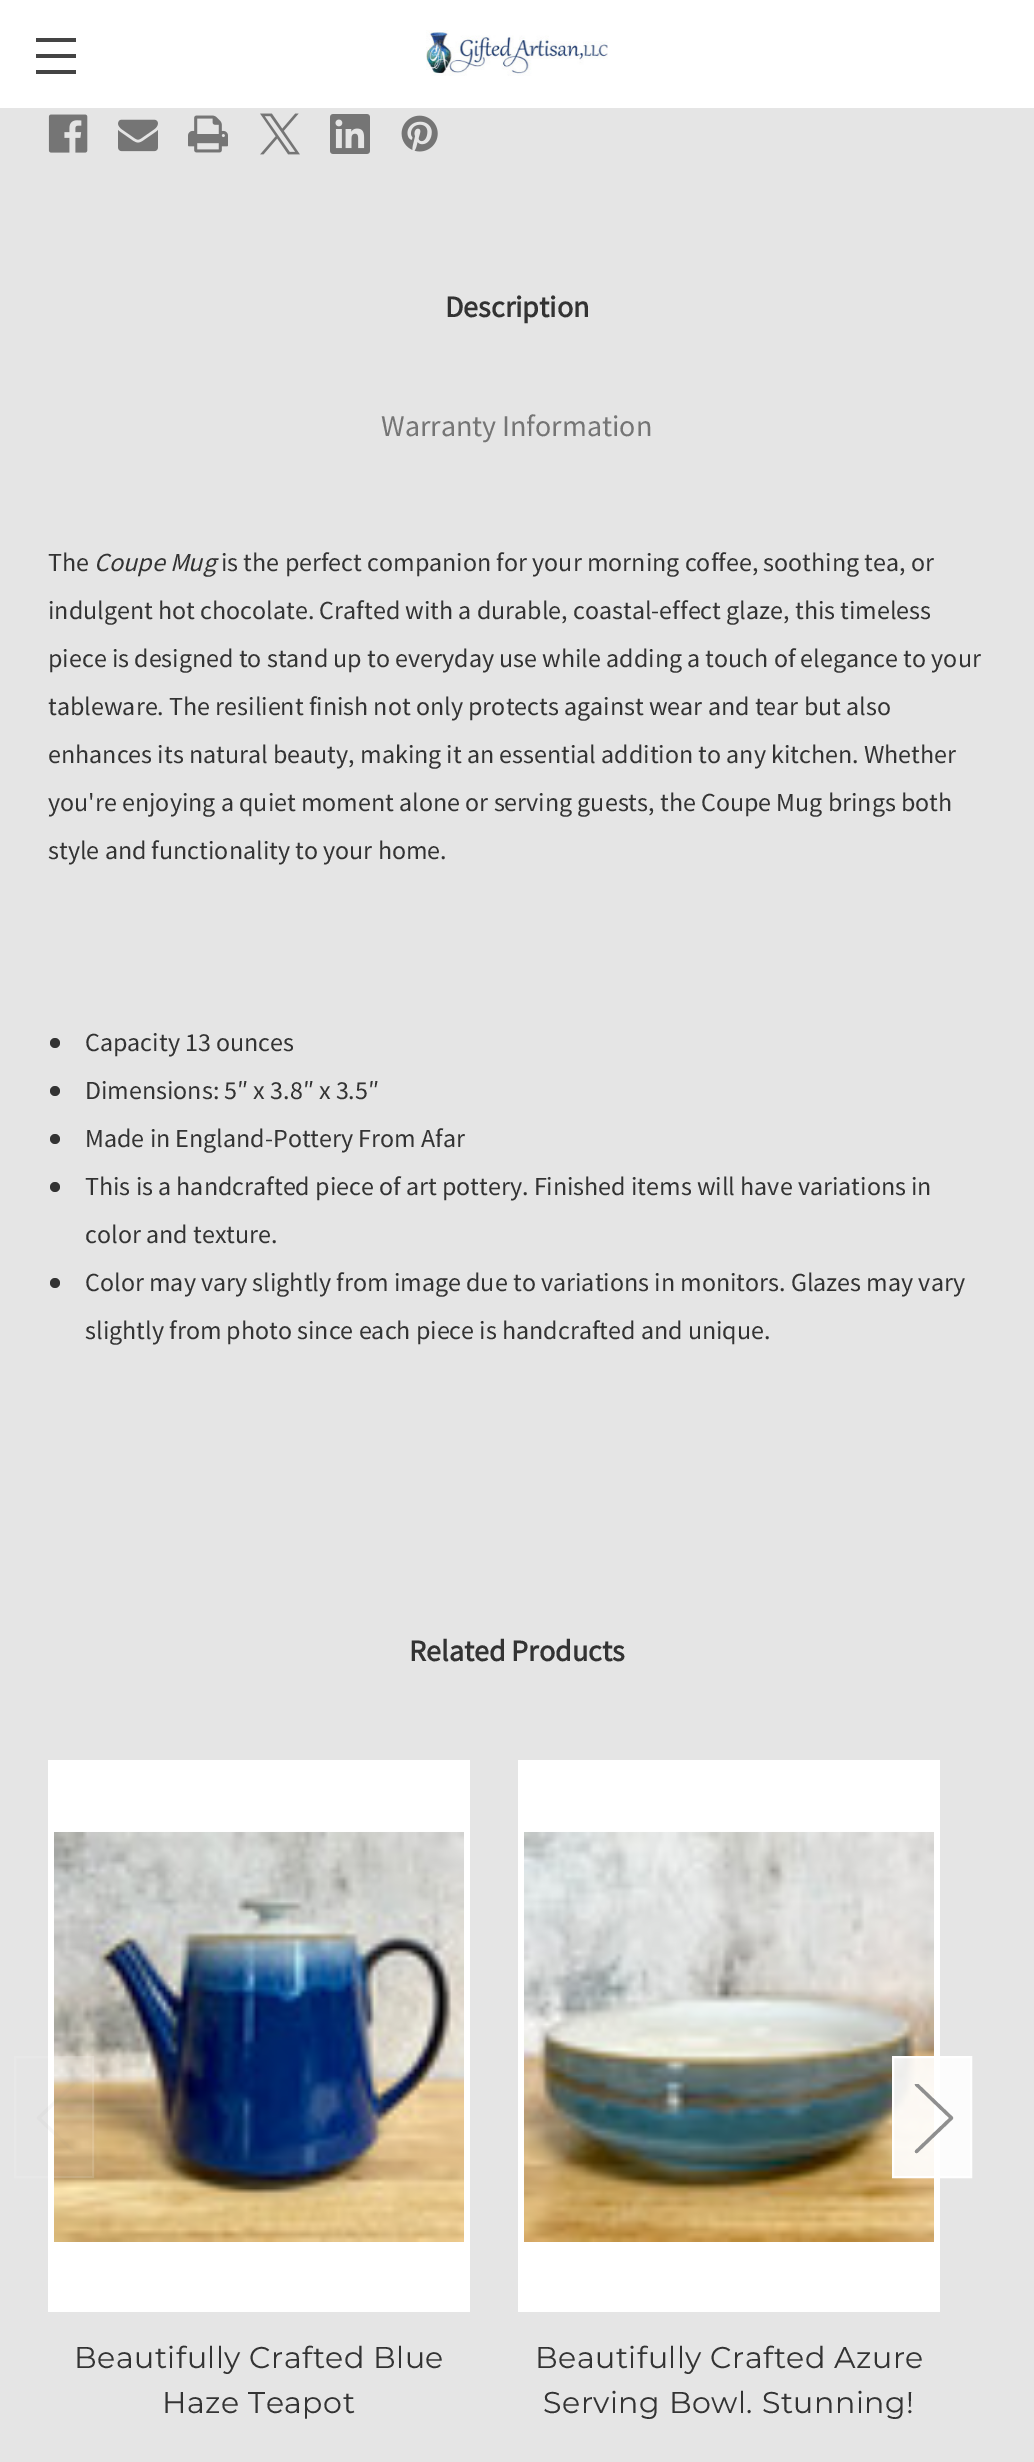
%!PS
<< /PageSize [1034 2462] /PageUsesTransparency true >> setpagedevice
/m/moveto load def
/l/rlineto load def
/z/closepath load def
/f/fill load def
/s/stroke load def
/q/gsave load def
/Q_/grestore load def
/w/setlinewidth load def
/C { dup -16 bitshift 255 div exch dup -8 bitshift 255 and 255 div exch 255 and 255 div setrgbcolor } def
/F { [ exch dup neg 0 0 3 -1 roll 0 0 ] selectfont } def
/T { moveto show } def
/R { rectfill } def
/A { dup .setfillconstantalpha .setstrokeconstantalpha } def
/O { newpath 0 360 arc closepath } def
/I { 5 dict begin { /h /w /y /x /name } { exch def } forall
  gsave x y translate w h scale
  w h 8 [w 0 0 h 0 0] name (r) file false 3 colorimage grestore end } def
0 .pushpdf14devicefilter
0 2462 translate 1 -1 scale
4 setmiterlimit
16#E5E5E5 C
0 0 1034 2462 R
16#FFFFFF C
0 0 1034 108 R
16#444444 C
36 54 40 4 R
36 38 40 4 R
36 70 40 4 R
(1.rgb) 426 30 182 46 I
(2.rgb) 48 114 40 39 I
(3.rgb) 118 119 40 33 I
(4.rgb) 188 115 40 38 I
(5.rgb) 260 113 40 42 I
(6.rgb) 330 114 40 40 I
(7.rgb) 401 115 37 37 I
/SourceSansPro-Bold 30 F
16#333333 C
(Description) 445 317 T
/SourceSansPro-Regular 30 F
16#757575 C
(Warranty Information) 381 436 T
/SourceSansPro-Regular 26 F
16#333333 C
(The) 48 571 T
/SourceSansPro-Italic 26 F
(Coupe Mug) 94 571 T
/SourceSansPro-Regular 26 F
(is the perfect companion for your morning coffee, soothing tea, or) 221 571 T
(indulgent hot chocolate. Crafted with a durable, coastal-effect glaze, this timeless) 48 619 T
(piece is designed to stand up to everyday use while adding a touch of elegance to your) 48 667 T
(tableware. The resilient finish not only protects against wear and tear but also) 48 715 T
(enhances its natural beauty, making it an essential addition to any kitchen. Whether) 48 763 T
(you're enjoying a quiet moment alone or serving guests, the Coupe Mug brings both) 48 811 T
(style and functionality to your home.) 48 859 T
55 1043 5 O f
(Capacity 13 ounces) 85 1051 T
55 1091 5 O f
(Dimensions: 5″ x 3.8″ x 3.5″) 85 1099 T
55 1139 5 O f
(Made in England-Pottery From Afar) 85 1147 T
55 1187 5 O f
(This is a handcrafted piece of art pottery. Finished items will have variations in) 85 1195 T
(color and texture.) 85 1243 T
55 1283 5 O f
(Color may vary slightly from image due to variations in monitors. Glazes may vary) 85 1291 T
(slightly from photo since each piece is handcrafted and unique.) 85 1339 T
/SourceSansPro-Bold 30 F
(Related Products) 409 1661 T
16#FFFFFF C
48 1760 422 552 R
(8.rgb) 54 1832 410 410 I
0.09 A
54 2056 40 122 R
0.1 A
2 w
15 2057 78 120 rectstroke
0.06 A
16#8F8F8F C
3.3 w
1 setlinecap
1 setlinejoin
73.5 2084.5 m -35 33.5 l 35 33.5 l s
1 A
16#FFFFFF C
518 1760 422 552 R
(9.rgb) 524 1832 410 410 I
0.9 A
893 2057 m 78 0 l 0 120 l -78 0 l z f
1 A
2 w
0 setlinecap
0 setlinejoin
893 2057 m 78 0 l 0 120 l -78 0 l z s
q
914 2084 40 70 rectclip
16#8F8F8F C
3.3 w
1 setlinecap
1 setlinejoin
916.5 2084.5 m 35 33.5 l -35 33.5 l s
Q_
/Montserrat-Regular 30 F
16#333333 C
74 2368 m .5 0 (Beautifully Crafted Blue) ashow
162 2413 m .5 0 (Haze Teapot) ashow
535 2368 m .5 0 (Beautifully Crafted Azure) ashow
543 2413 m .5 0 (Serving Bowl. Stunning!) ashow
.poppdf14devicefilter showpage
